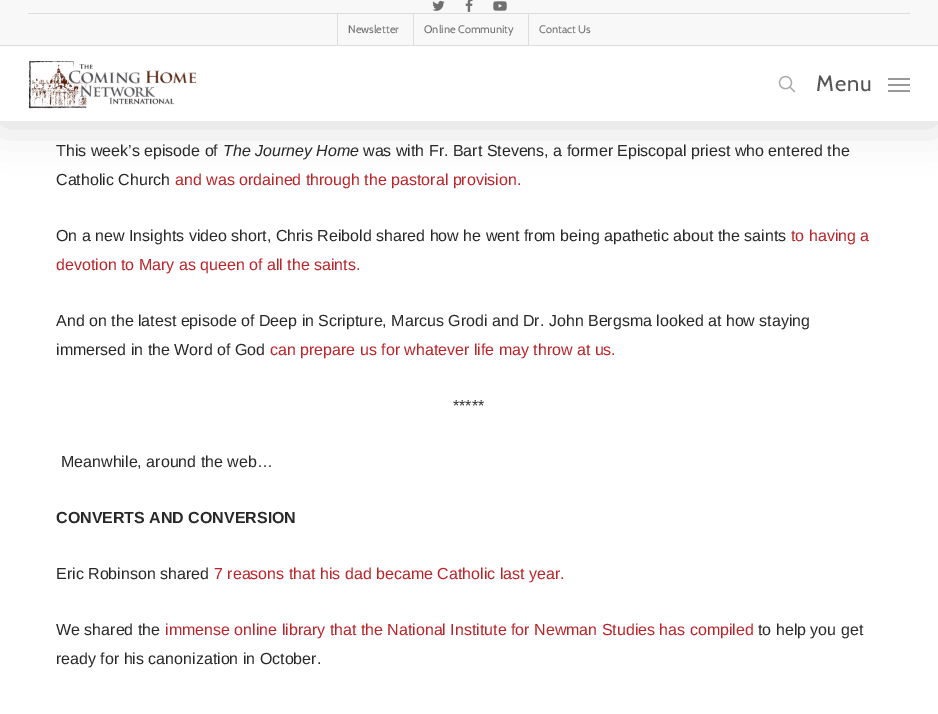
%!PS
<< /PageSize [938 714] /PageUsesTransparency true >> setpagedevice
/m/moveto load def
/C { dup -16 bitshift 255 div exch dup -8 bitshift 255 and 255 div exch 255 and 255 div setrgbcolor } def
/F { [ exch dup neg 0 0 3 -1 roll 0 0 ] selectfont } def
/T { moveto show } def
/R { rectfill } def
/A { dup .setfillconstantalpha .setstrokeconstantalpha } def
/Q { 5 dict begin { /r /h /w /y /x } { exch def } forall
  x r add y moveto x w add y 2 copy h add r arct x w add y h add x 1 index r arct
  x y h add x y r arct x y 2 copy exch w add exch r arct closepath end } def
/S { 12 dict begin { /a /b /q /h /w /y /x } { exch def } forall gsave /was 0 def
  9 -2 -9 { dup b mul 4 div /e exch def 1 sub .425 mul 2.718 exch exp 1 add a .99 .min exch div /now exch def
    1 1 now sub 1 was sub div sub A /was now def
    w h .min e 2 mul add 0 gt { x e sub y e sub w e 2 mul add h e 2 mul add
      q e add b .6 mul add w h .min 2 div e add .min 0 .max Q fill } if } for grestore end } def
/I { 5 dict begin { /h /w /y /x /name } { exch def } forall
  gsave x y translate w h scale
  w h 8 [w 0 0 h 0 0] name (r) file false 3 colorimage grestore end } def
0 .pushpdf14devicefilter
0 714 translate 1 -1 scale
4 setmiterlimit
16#FFFFFF C
0 0 938 714 R
16#000000 C
0 3 938 121 0 22.5 .15 S
16#FFFFFF C
0 46 938 75 R
16#F8F8F8 C
0 0 938 45 R
16#DDDDDD C
0 45 938 1 R
(1.rgb) 432 0 13 11 I
(2.rgb) 465 0 8 12 I
(3.rgb) 493 1 14 10 I
28 13 882 1 R
337 14 1 31 R
/Cabin-Regular 11 F
16#707070 C
(Newsletter) 348 33 T
16#DDDDDD C
413 14 1 31 R
16#707070 C
(Online Community) 424 33 T
16#DDDDDD C
528 14 1 31 R
16#707070 C
(Contact Us) 539 33 T
(4.rgb) 28 61 169 48 I
(5.rgb) 778 75 18 18 I
/Cabin-Regular 22 F
16#555555 C
816 91 m 1 0 (Menu) ashow
16#999999 C
888 78 22 2 R
888 90 22 2 R
888 84 22 2 R
/LiberationSans-Regular 16 F
16#282828 C
(This week’s episode of) 56 156 T
/LiberationSans-Italic 16 F
(The Journey Home) 223 156 T
/LiberationSans-Regular 16 F
(was with Fr. Bart Stevens, a former Episcopal priest who entered the) 363 156 T
(Catholic Church) 56 185 T
16#BA2328 C
(and was ordained through the pastoral provision.) 175 185 T
16#282828 C
(On a new Insights video short, Chris Reibold shared how he went from being apathetic about the saints) 56 241 T
16#BA2328 C
(to having a) 791 241 T
(devotion to Mary as queen of all the saints.) 56 270 T
16#282828 C
(And on the latest episode of Deep in Scripture, Marcus Grodi and Dr. John Bergsma looked at how staying) 56 326 T
(immersed in the Word of God) 56 355 T
16#BA2328 C
(can prepare us for whatever life may throw at us.) 270 355 T
16#282828 C
(*****) 453 411 T
(Meanwhile, around the web…) 61 467 T
/LiberationSans-Bold 16 F
(CONVERTS AND CONVERSION) 56 523 T
/LiberationSans-Regular 16 F
(Eric Robinson shared) 56 579 T
16#BA2328 C
(7 reasons that his dad became Catholic last year.) 214 579 T
16#282828 C
(We shared the) 56 635 T
16#BA2328 C
(immense online library that the National Institute for Newman Studies has compiled) 165 635 T
16#282828 C
(to help you get) 758 635 T
(ready for his canonization in October.) 56 664 T
.poppdf14devicefilter showpage
